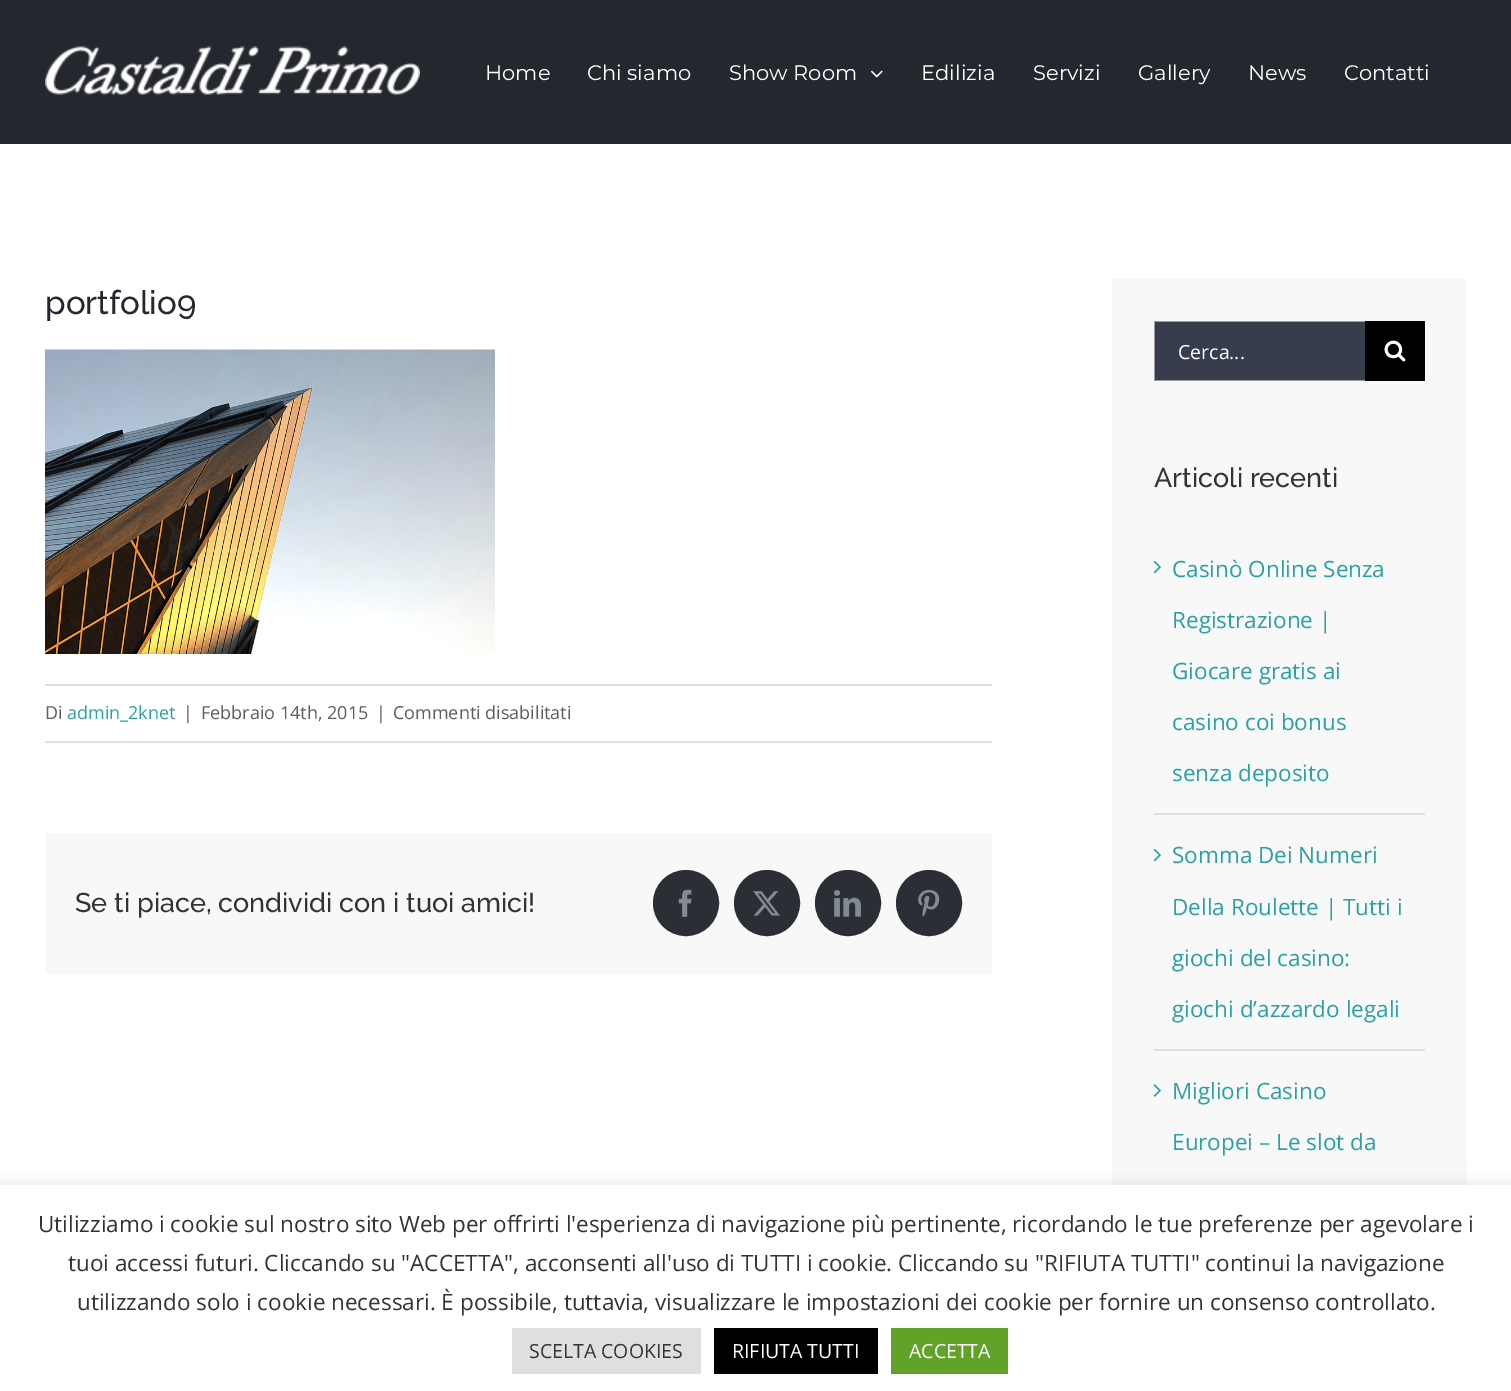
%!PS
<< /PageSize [1511 1391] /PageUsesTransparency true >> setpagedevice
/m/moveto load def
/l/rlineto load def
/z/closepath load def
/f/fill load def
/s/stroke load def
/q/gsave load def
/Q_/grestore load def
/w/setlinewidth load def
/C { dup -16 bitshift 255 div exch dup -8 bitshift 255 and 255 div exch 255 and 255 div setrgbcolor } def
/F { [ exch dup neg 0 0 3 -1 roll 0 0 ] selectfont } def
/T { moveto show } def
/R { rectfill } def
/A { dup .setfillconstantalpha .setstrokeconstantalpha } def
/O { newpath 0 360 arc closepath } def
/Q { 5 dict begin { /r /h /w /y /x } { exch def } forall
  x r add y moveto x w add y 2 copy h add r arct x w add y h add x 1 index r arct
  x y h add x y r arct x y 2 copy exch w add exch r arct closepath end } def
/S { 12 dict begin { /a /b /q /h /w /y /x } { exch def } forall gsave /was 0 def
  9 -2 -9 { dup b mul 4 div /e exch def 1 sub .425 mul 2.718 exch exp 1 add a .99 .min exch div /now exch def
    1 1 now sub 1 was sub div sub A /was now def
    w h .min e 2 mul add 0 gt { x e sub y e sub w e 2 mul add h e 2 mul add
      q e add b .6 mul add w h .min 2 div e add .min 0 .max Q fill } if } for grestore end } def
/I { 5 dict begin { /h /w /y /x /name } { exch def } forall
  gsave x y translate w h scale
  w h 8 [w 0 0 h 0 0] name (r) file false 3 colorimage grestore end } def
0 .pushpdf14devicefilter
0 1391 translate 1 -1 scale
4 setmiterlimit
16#FFFFFF C
0 0 1511 1391 R
16#24272D C
0 0 1511 144 R
(1.rgb) 45 46 375 49 I
/Montserrat-Thin 21 F
16#FFFFFF C
(Home) 485 80 T
(Chi siamo) 587 80 T
(Show Room) 729 80 T
(2.rgb) 871 70 12 8 I
(Edilizia) 921 80 T
(Servizi) 1033 80 T
(Gallery) 1138 80 T
(News) 1248 80 T
(Contatti) 1344 80 T
/Raleway-Thin 33 F
16#242930 C
(portfolio9) 45 314 T
(3.rgb) 45 349 450 305 I
16#E0DEDE C
45 684 947 2 R
45 741 947 2 R
/OpenSans-Regular 18 F
16#5A5D62 C
(Di) 45 719 T
16#2BA0A3 C
(admin_2knet) 67 719 T
16#5A5D62 C
(|) 183 719 T
(Febbraio 14th, 2015) 201 719 T
(|) 376 719 T
(Commenti disabilitati) 393 719 T
16#F8F8F8 C
45 833 947 141 R
/Raleway-Thin 27 F
16#333333 C
(Se ti piace, condividi con i tuoi amici!) 75 912 T
16#2B2E35 C
686 903 32 O q f Q_
2 w
s
(4.rgb) 678 889 14 28 I
767 903 32 O q f Q_
s
(5.rgb) 753 891 27 25 I
848 903 32 O q f Q_
s
(6.rgb) 834 890 27 27 I
929 903 32 O q f Q_
s
(7.rgb) 918 889 22 28 I
16#F8F8F8 C
1112 279 355 906 R
16#373D4D C
1154 321 211 60 R
16#9B9EA6 C
1154 321 m 211 0 l 0 1 l -210 0 l z f
1365 381 m -211 0 l 1 -1 l 210 0 l z f
0.5 A
16#FFFFFF C
1154 381 m 0 -60 l 1 1 l 0 58 l z f
/OpenSans-Regular 19.5 F
1 A
(Cerca...) 1178 359 T
16#000000 C
1365 321 60 60 R
(8.rgb) 1384 340 22 22 I
/Raleway-Thin 27 F
16#333333 C
(Articoli recenti) 1154 487 T
16#E0DEDE C
1154 813 271 2 R
(9.rgb) 1153 560 8 14 I
/OpenSans-Regular 22.5 F
16#2BA0A3 C
(Casinò Online Senza) 1172 577 T
(Registrazione |) 1172 628 T
(Giocare gratis ai) 1172 679 T
(casino coi bonus) 1172 730 T
(senza deposito) 1172 781 T
16#E0DEDE C
1154 1049 271 2 R
(9.rgb) 1153 848 8 14 I
16#2BA0A3 C
(Somma Dei Numeri) 1172 863 T
(Della Roulette | Tutti i) 1172 915 T
(giochi del casino:) 1172 966 T
(giochi d’azzardo legali) 1172 1017 T
(10.rgb) 1153 1084 8 13 I
(Migliori Casino) 1172 1099 T
(Europei – Le slot da) 1172 1150 T
16#ACABAB C
0 1184 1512 207 0 7.5 .3 S
16#FFFFFF C
0 1185 1511 206 R
16#333333 C
(Utilizziamo i cookie sul nostro sito Web per offrirti l'esperienza di navigazione più pertinente, ricordando le tue preferenze per agevolare i) 38 1232 T
(tuoi accessi futuri. Cliccando su "ACCETTA", acconsenti all'uso di TUTTI i cookie. Cliccando su "RIFIUTA TUTTI" continui la navigazione) 68 1271 T
(utilizzando solo i cookie necessari. È possibile, tuttavia, visualizzare le impostazioni dei cookie per fornire un consenso controllato.) 77 1310 T
16#DEDFE0 C
512 1328 189 46 R
/OpenSans-Regular 19.5 F
16#333333 C
(SCELTA COOKIES) 529 1358 T
16#000000 C
714 1328 164 46 R
16#FFFFFF C
(RIFIUTA TUTTI) 732 1358 T
16#61A229 C
891 1328 117 46 R
16#FFFFFF C
(ACCETTA) 909 1358 T
.poppdf14devicefilter showpage
